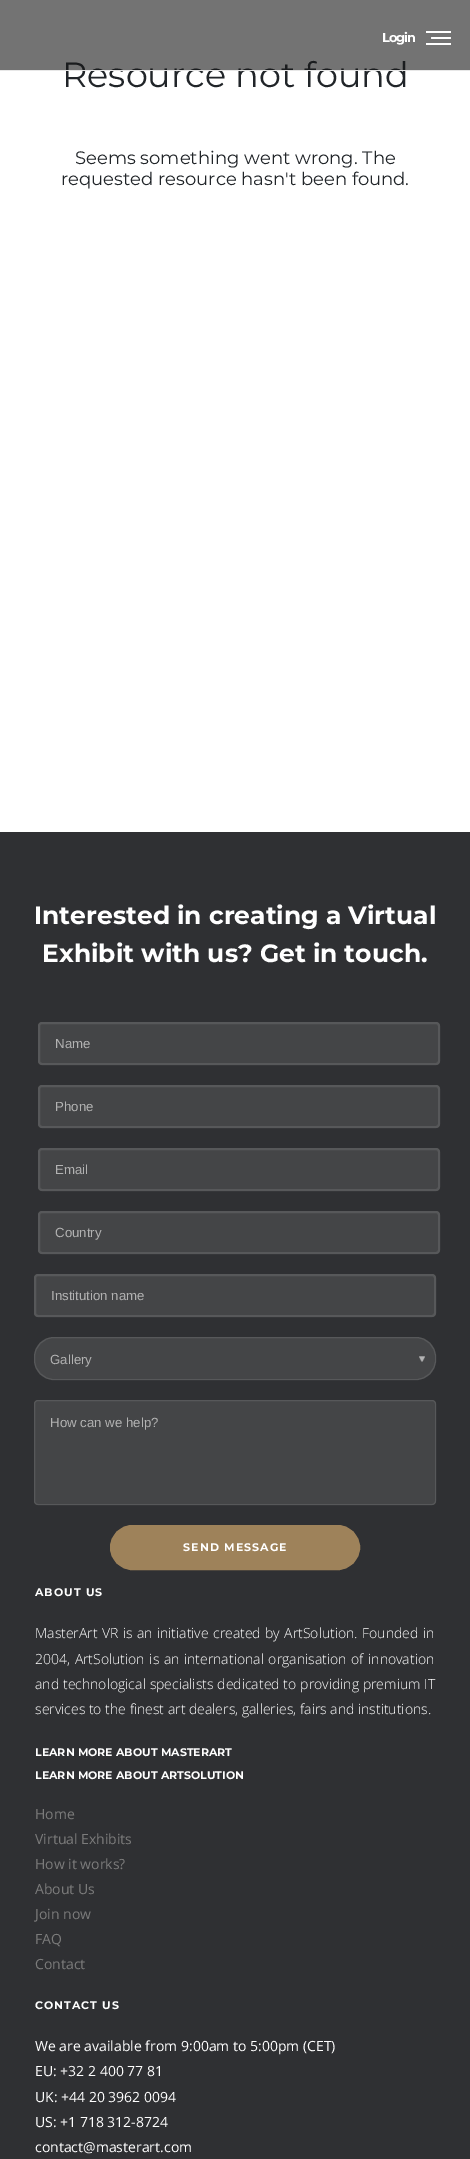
%!PS
<< /PageSize [470 2159] /PageUsesTransparency true >> setpagedevice
/m/moveto load def
/f/fill load def
/s/stroke load def
/q/gsave load def
/Q_/grestore load def
/w/setlinewidth load def
/C { dup -16 bitshift 255 div exch dup -8 bitshift 255 and 255 div exch 255 and 255 div setrgbcolor } def
/F { [ exch dup neg 0 0 3 -1 roll 0 0 ] selectfont } def
/T { moveto show } def
/R { rectfill } def
/A { dup .setfillconstantalpha .setstrokeconstantalpha } def
/Q { 5 dict begin { /r /h /w /y /x } { exch def } forall
  x r add y moveto x w add y 2 copy h add r arct x w add y h add x 1 index r arct
  x y h add x y r arct x y 2 copy exch w add exch r arct closepath end } def
/I { 5 dict begin { /h /w /y /x /name } { exch def } forall
  gsave x y translate w h scale
  w h 8 [w 0 0 h 0 0] name (r) file false 3 colorimage grestore end } def
0 .pushpdf14devicefilter
0 2159 translate 1 -1 scale
4 setmiterlimit
16#FFFFFF C
0 0 470 2159 R
/Montserrat-Regular 35 F
16#212529 C
(Resource not found) 62 87 T
0.6 A
16#161616 C
0 0 470 70 R
1 A
16#E7E7E7 C
0 70 470 1 R
/Montserrat-Bold 13 F
16#FFFFFF C
382 42 m -1 0 (Login) ashow
431 37 20 2 1 Q f
426 31 25 2 R
426 43 25 2 R
/Montserrat-Regular 18 F
16#212529 C
(Seems something went wrong. The) 75 164 T
(requested resource hasn't been found.) 61 185 T
16#2F3033 C
0 832 470 1327 R
/Montserrat-Bold 25 F
16#FFFFFF C
(Interested in creating a Virtual) 34 924 T
(Exhibit with us? Get in touch.) 42 962 T
16#444547 C
38 1022 402 43 4 Q f
0.1 A
16#FFFFFF C
2 w
39 1023 400 41 3 Q s
/LiberationSans-Regular 13.25 F
1 A
16#B2B2B2 C
(Name) 55 1048 T
16#444547 C
38 1085 402 43 4 Q f
0.1 A
16#FFFFFF C
39 1086 400 41 3 Q s
1 A
16#B2B2B2 C
(Phone) 55 1111 T
16#444547 C
38 1148 402 43 4 Q f
0.1 A
16#FFFFFF C
39 1149 400 41 3 Q s
1 A
16#B2B2B2 C
(Email) 55 1174 T
16#444547 C
38 1211 402 43 4 Q f
0.1 A
16#FFFFFF C
39 1212 400 41 3 Q s
1 A
16#B2B2B2 C
(Country) 55 1237 T
16#444547 C
34 1274 402 43 4 Q f
0.1 A
16#FFFFFF C
35 1275 400 41 3 Q s
1 A
16#B2B2B2 C
(Institution name) 51 1300 T
16#444547 C
34 1337 402 43 20 Q f
(1.rgb) 419 1356 6 6 I
0.1 A
16#FFFFFF C
1 w
34.5 1337.5 401 42 19.5 Q s
1 A
16#B2B2B2 C
(Gallery) 50 1364 T
16#444547 C
34 1400 402 105 4 Q f
0.1 A
16#FFFFFF C
34.5 1400.5 401 104 3.5 Q s
1 A
16#B2B2B2 C
(How can we help?) 50 1427 T
16#9E825A C
110.5 1525.5 249 44 22 Q q f Q_
s
/Montserrat-Bold 11 F
16#FFFFFF C
183 1551 m 1.1 0 (SEND MESSAGE) ashow
35 1596 m 1 0 (ABOUT US) ashow
/OpenSans-Light 14 F
35 1638 m .75 0 32 (MasterArt VR is an initiative created by ArtSolution. Founded in) widthshow
35 1664 m 1 0 32 (2004, ArtSolution is an international organisation of innovation) widthshow
35 1689 m .25 0 32 (and technological specialists dedicated to providing premium IT) widthshow
(services to the finest art dealers, galleries, fairs and institutions.) 35 1714 T
/Montserrat-Bold 11 F
(LEARN MORE ABOUT MASTERART) 35 1756 T
(LEARN MORE ABOUT ARTSOLUTION) 35 1779 T
/OpenSans-Regular 14 F
16#7B7B7B C
(Home) 35 1819 T
(Virtual Exhibits) 35 1844 T
(How it works?) 35 1869 T
(About Us) 35 1894 T
(Join now) 35 1919 T
(FAQ) 35 1944 T
(Contact) 35 1969 T
/Montserrat-Bold 11 F
16#FFFFFF C
35 2009 m 1 0 (CONTACT US) ashow
/OpenSans-Regular 14 F
(We are available from 9:00am to 5:00pm \(CET\)) 35 2051 T
(EU: +32 2 400 77 81) 35 2076 T
(UK: +44 20 3962 0094) 35 2102 T
(US: +1 718 312-8724) 35 2127 T
(contact@masterart.com) 35 2152 T
.poppdf14devicefilter showpage
